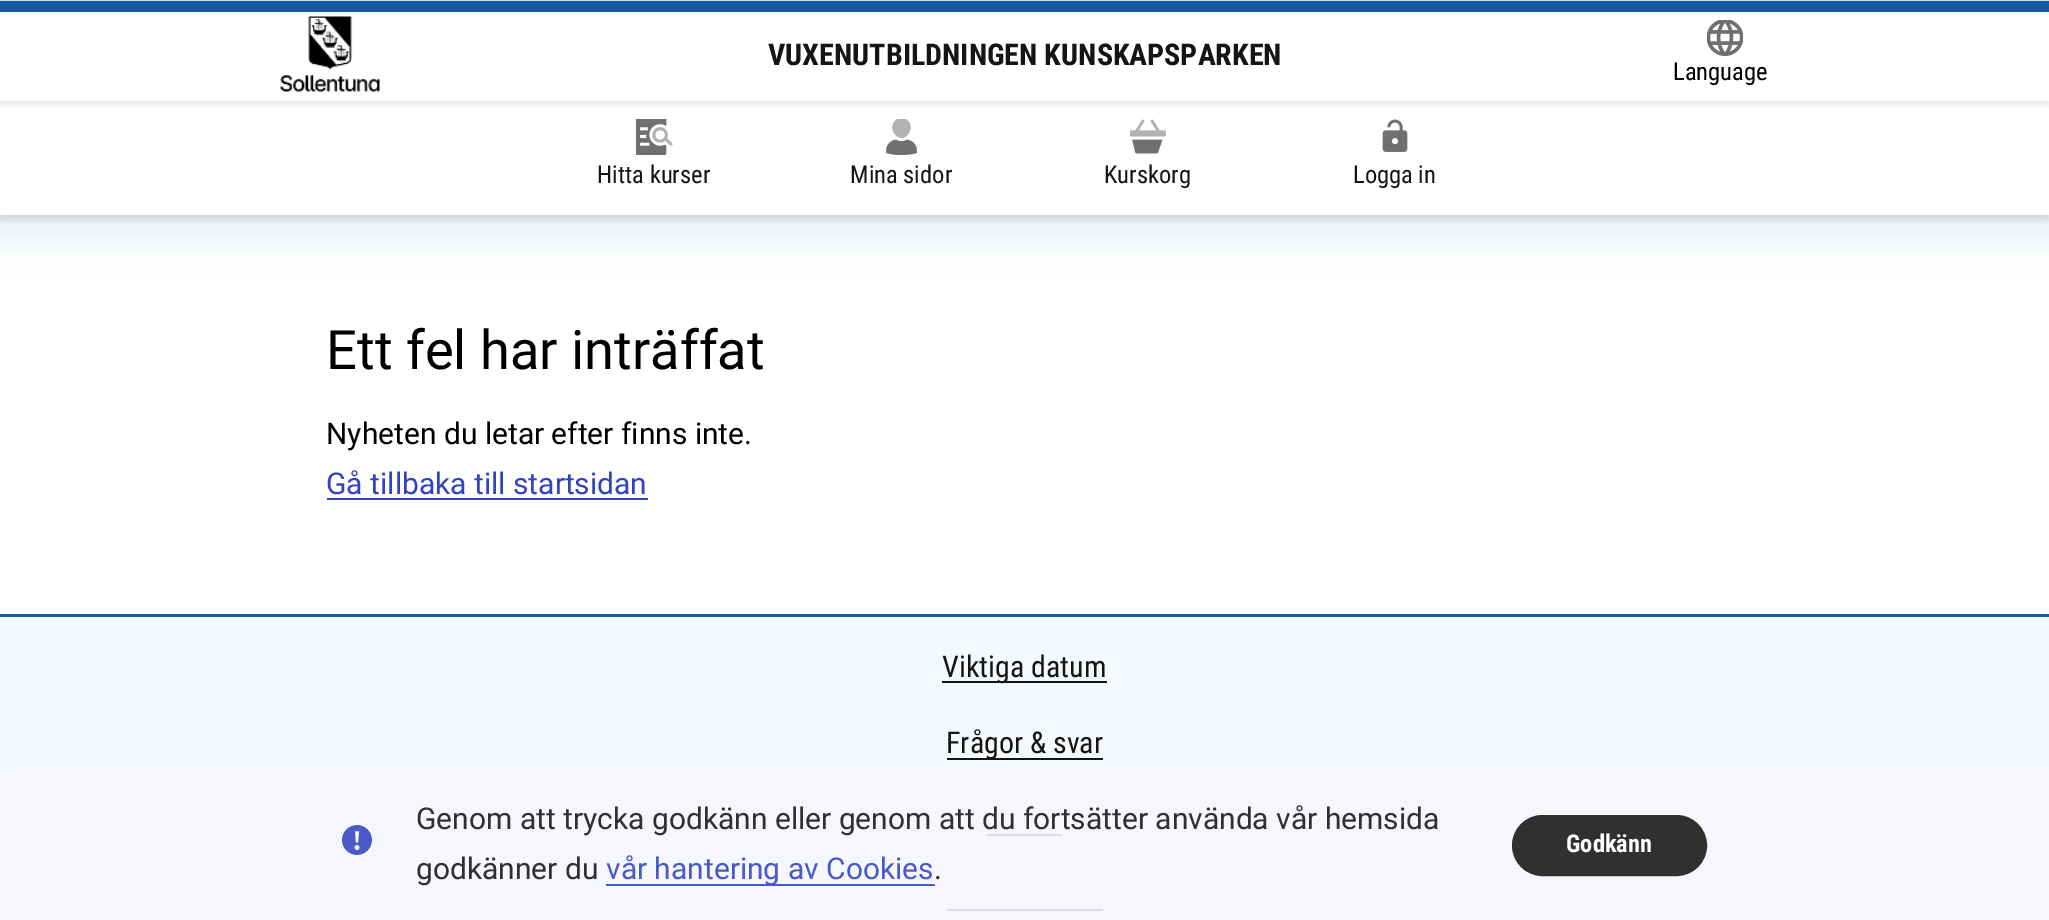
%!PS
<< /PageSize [2049 920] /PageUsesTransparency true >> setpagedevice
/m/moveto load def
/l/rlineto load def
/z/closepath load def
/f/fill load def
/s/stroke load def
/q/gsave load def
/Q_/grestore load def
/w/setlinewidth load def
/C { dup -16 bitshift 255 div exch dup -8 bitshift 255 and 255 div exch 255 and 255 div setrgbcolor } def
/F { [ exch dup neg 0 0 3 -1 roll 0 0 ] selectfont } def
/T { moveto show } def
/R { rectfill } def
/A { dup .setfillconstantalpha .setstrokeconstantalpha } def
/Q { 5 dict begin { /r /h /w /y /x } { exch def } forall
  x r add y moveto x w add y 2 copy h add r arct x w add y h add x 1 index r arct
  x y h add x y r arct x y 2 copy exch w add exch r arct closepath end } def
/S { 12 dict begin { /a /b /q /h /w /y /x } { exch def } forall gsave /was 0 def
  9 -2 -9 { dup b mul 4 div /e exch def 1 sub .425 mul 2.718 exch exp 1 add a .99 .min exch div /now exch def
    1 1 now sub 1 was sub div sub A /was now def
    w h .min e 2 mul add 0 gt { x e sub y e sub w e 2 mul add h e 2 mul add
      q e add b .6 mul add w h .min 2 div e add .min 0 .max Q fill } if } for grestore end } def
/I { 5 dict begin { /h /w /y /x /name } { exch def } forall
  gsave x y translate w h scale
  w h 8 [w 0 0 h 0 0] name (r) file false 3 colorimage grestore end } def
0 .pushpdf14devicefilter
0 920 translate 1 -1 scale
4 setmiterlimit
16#FFFFFF C
0 0 2049 920 R
q
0 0 m 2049 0 l 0 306 l -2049 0 l z 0 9 m 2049 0 l 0 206 l -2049 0 l z eoclip newpath
16#145BA3 C
-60 -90 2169 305 0 30 .2 S
Q_
q
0 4 m 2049 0 l 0 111 l -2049 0 l z 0 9 m 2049 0 l 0 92 l -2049 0 l z eoclip newpath
16#000000 C
0 14 2049 91 0 3 .1 S
Q_
16#145BA3 C
0 1 2049 11 R
(1.rgb) 280 16 100 76 I
/RobotoCondensed-Bold 30 F
16#151515 C
(VUXENUTBILDNINGEN KUNSKAPSPARKEN) 768 65 T
(2.rgb) 1707 20 36 36 I
/RobotoCondensed-Regular 24.5 F
16#000000 C
(Language) 1673 80 T
q
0 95 m 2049 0 l 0 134 l -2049 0 l z 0 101 m 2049 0 l 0 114 l -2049 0 l z eoclip newpath
0 105 2049 114 0 3 .1 S
Q_
(3.rgb) 636 119 37 36 I
16#151515 C
(Hitta kurser) 597 183 T
(4.rgb) 886 119 31 36 I
(Mina sidor) 850 183 T
(5.rgb) 1130 119 36 35 I
(Kurskorg) 1104 183 T
(6.rgb) 1382 119 26 33 I
(Logga in) 1353 183 T
/Roboto-Regular 54.25 F
16#000000 C
(Ett fel har inträffat) 326 369 T
/Roboto-Regular 30 F
(Nyheten du letar efter finns inte.) 326 444 T
16#3143C1 C
(Gå tillbaka till startsidan) 326 494 T
327 498 321 2 R
16#F6F9FC C
0 617 2049 303 R
16#145BA3 C
0 614 2049 3 R
16#151515 C
942 681 165 2 R
/RobotoCondensed-Regular 30 F
(Viktiga datum) 942 677 T
947 758 156 2 R
(Frågor & svar) 946 753 T
987 834 75 2 R
947 909 156 2 R
0.88 A
16#F6F7FE C
0 768 2049 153 15 Q f
1 A
(7.rgb) 342 825 30 30 I
/Roboto-Regular 30 F
16#303031 C
(Genom att trycka godkänn eller genom att du fortsätter använda vår hemsida) 416 829 T
(godkänner du) 416 879 T
16#4959C8 C
606 884 329 2 R
(vår hantering av Cookies) 606 879 T
16#303031 C
(.) 934 879 T
1513.5 816.5 192 58 29 Q q f Q_
3 w
s
/RobotoCondensed-Bold 24.5 F
16#FEFEFF C
(Godkänn) 1566 852 T
.poppdf14devicefilter showpage
